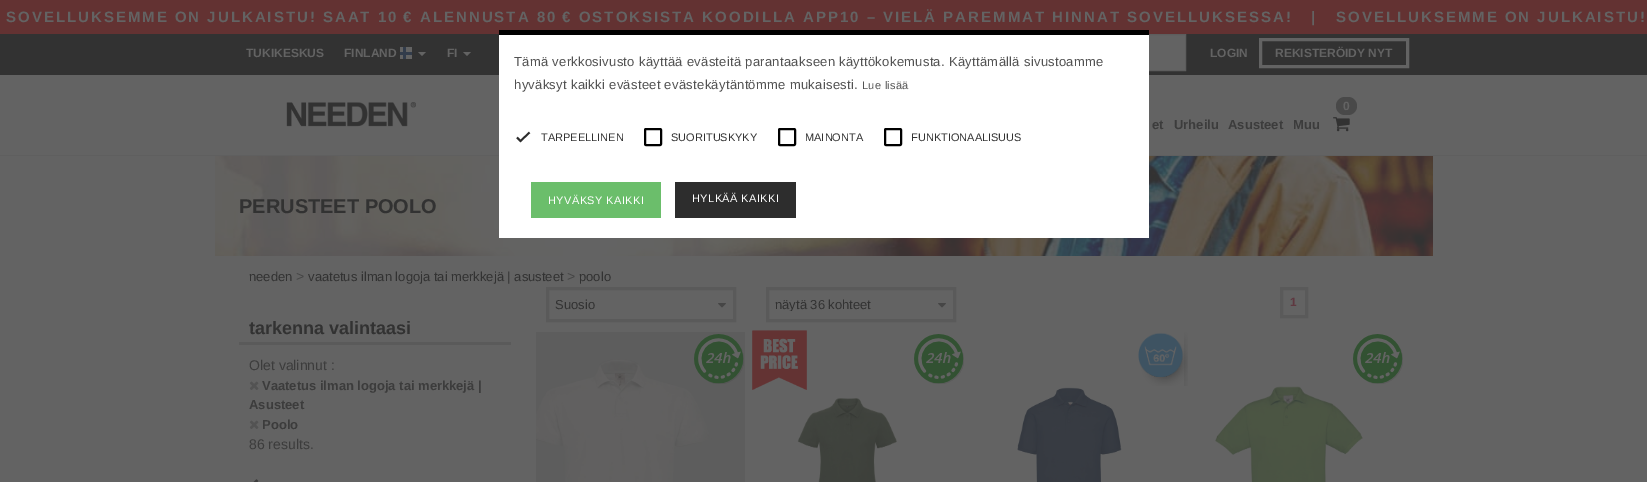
%!PS
<< /PageSize [1647 482] >> setpagedevice
/m/moveto load def
/l/rlineto load def
/z/closepath load def
/f/fill load def
/s/stroke load def
/q/gsave load def
/Q_/grestore load def
/w/setlinewidth load def
/C { dup -16 bitshift 255 div exch dup -8 bitshift 255 and 255 div exch 255 and 255 div setrgbcolor } def
/F { [ exch dup neg 0 0 3 -1 roll 0 0 ] selectfont } def
/T { moveto show } def
/R { rectfill } def
/Q { 5 dict begin { /r /h /w /y /x } { exch def } forall
  x r add y moveto x w add y 2 copy h add r arct x w add y h add x 1 index r arct
  x y h add x y r arct x y 2 copy exch w add exch r arct closepath end } def
/I { 5 dict begin { /h /w /y /x /name } { exch def } forall
  gsave x y translate w h scale
  w h 8 [w 0 0 h 0 0] name (r) file false 3 colorimage grestore end } def
0 482 translate 1 -1 scale
4 setmiterlimit
16#636363 C
0 0 1647 482 R
16#633232 C
0 0 1647 34 R
/LiberationSans-Bold 15 F
16#636363 C
6 22 m 2 0 (SOVELLUKSEMME ON JULKAISTU! SAAT 10 € ALENNUSTA 80 € OSTOKSISTA KOODILLA APP10 – VIELÄ PAREMMAT HINNAT SOVELLUKSESSA!) ashow
1311 22 m 2 0 (|) ashow
1336 22 m 2 0 (SOVELLUKSEMME ON JULKAISTU!) ashow
16#323232 C
0 34 1647 41 R
/LiberationSans-Bold 12 F
16#636363 C
(TUKIKESKUS) 246 57 T
(FINLAND) 344 57 T
400 47 12 12 R
16#323C4B C
400 52 12 3 R
403 47 3 12 R
16#636363 C
418 52 m 8 0 l -4 4 l z f
(FI) 447 57 T
463 52 m 8 0 l -4 4 l z f
1149 35 36 35 R
16#5D5D5D C
971.5 34.5 214 36 rectstroke
16#636363 C
(LOGIN) 1210 57 T
3 w
1260.5 39.5 147 27 rectstroke
(REKISTERÖIDY NYT) 1275 57 T
16#5F5F5F C
0 155 1647 1 R
(3.rgb) 215 156 1218 100 I
16#FFFFFF C
499 35 650 203 R
16#000000 C
499 30 650 5 R
/LiberationSans-Regular 13 F
16#525252 C
514 66 m .3 0 (Tämä verkkosivusto käyttää evästeitä parantaakseen käyttökokemusta. Käyttämällä sivustoamme) ashow
514 89 m .3 0 (hyväksyt kaikki evästeet evästekäytäntömme mukaisesti.) ashow
/LiberationSans-Regular 11 F
862 89 m .3 0 (Lue lisää) ashow
16#2D2D2D C
1.8 w
517 137.5 m 3.5 3.5 l 9 -8.5 l s
16#323232 C
(TARPEELLINEN) 541 141 T
16#000000 C
2 w
645 129 16 16 1 Q s
16#323232 C
(SUORITUSKYKY) 671 141 T
16#000000 C
779 129 16 16 1 Q s
16#323232 C
(MAINONTA) 805 141 T
16#000000 C
885 129 16 16 1 Q s
16#323232 C
(FUNKTIONAALISUUS) 911 141 T
16#6BBE6B C
531 182 130 36 R
16#FFFFFF C
548 204 m .4 0 (HYVÄKSY KAIKKI) ashow
16#2D2D2D C
675 182 121 36 R
16#FFFFFF C
692 202 m .4 0 (HYLKÄÄ KAIKKI) ashow
(1.rgb) 286 102 130 25 I
16#494949 C
1336 97 21 18 9 Q f
/LiberationSans-Bold 12 F
16#636363 C
(0) 1343 110 T
(2.rgb) 1333 117 17 15 I
/LiberationSans-Bold 13 F
16#3C3C3C C
(et) 1152 129 T
(Urheilu) 1174 129 T
(Asusteet) 1228 129 T
(Muu) 1293 129 T
/LiberationSans-Bold 20 F
16#323232 C
(PERUSTEET POOLO) 239 213 T
/LiberationSans-Regular 13 F
(needen) 249 281 T
/LiberationSans-Regular 14 F
16#464646 C
(>) 296 281 T
/LiberationSans-Regular 13 F
16#323232 C
(vaatetus ilman logoja tai merkkejä | asusteet) 308 281 T
/LiberationSans-Regular 14 F
16#464646 C
(>) 567 281 T
/LiberationSans-Regular 13 F
16#323232 C
(poolo) 579 281 T
16#5A5A5A C
3 w
547.5 288.5 187 32 rectstroke
16#323232 C
(Suosio) 555 309 T
(4.rgb) 718 303 8 5 I
16#5A5A5A C
767.5 288.5 187 32 rectstroke
q
775 298 153 13 rectclip
16#323232 C
(näytä 36 kohteet) 775 309 T
Q_
(4.rgb) 938 303 8 5 I
1281.5 288.5 25 28 rectstroke
/LiberationSans-Bold 12 F
16#5F3840 C
(1) 1290 306 T
(5.rgb) 536 332 209 150 I
(6.rgb) 694 334 50 50 I
(7.rgb) 752 330 55 60 I
(8.rgb) 914 334 50 50 I
(9.rgb) 797 397 100 85 I
(10.rgb) 1138 332 50 54 I
(11.rgb) 1017 387 105 95 I
(8.rgb) 1353 334 50 50 I
(12.rgb) 1215 386 148 96 I
16#5A5A5A C
239 342 272 3 R
/LiberationSans-Bold 18 F
16#323232 C
(tarkenna valintaasi) 249 334 T
/LiberationSans-Regular 14 F
16#3C3C3C C
(Olet valinnut :) 249 370 T
(13.rgb) 249 381 10 9 I
/LiberationSans-Bold 13 F
(Vaatetus ilman logoja tai merkkejä |) 262 390 T
(Asusteet) 249 409 T
(13.rgb) 249 420 10 9 I
(Poolo) 262 429 T
/LiberationSans-Regular 14 F
(86 results.) 249 449 T
(14.rgb) 253 479 6 3 I
showpage
